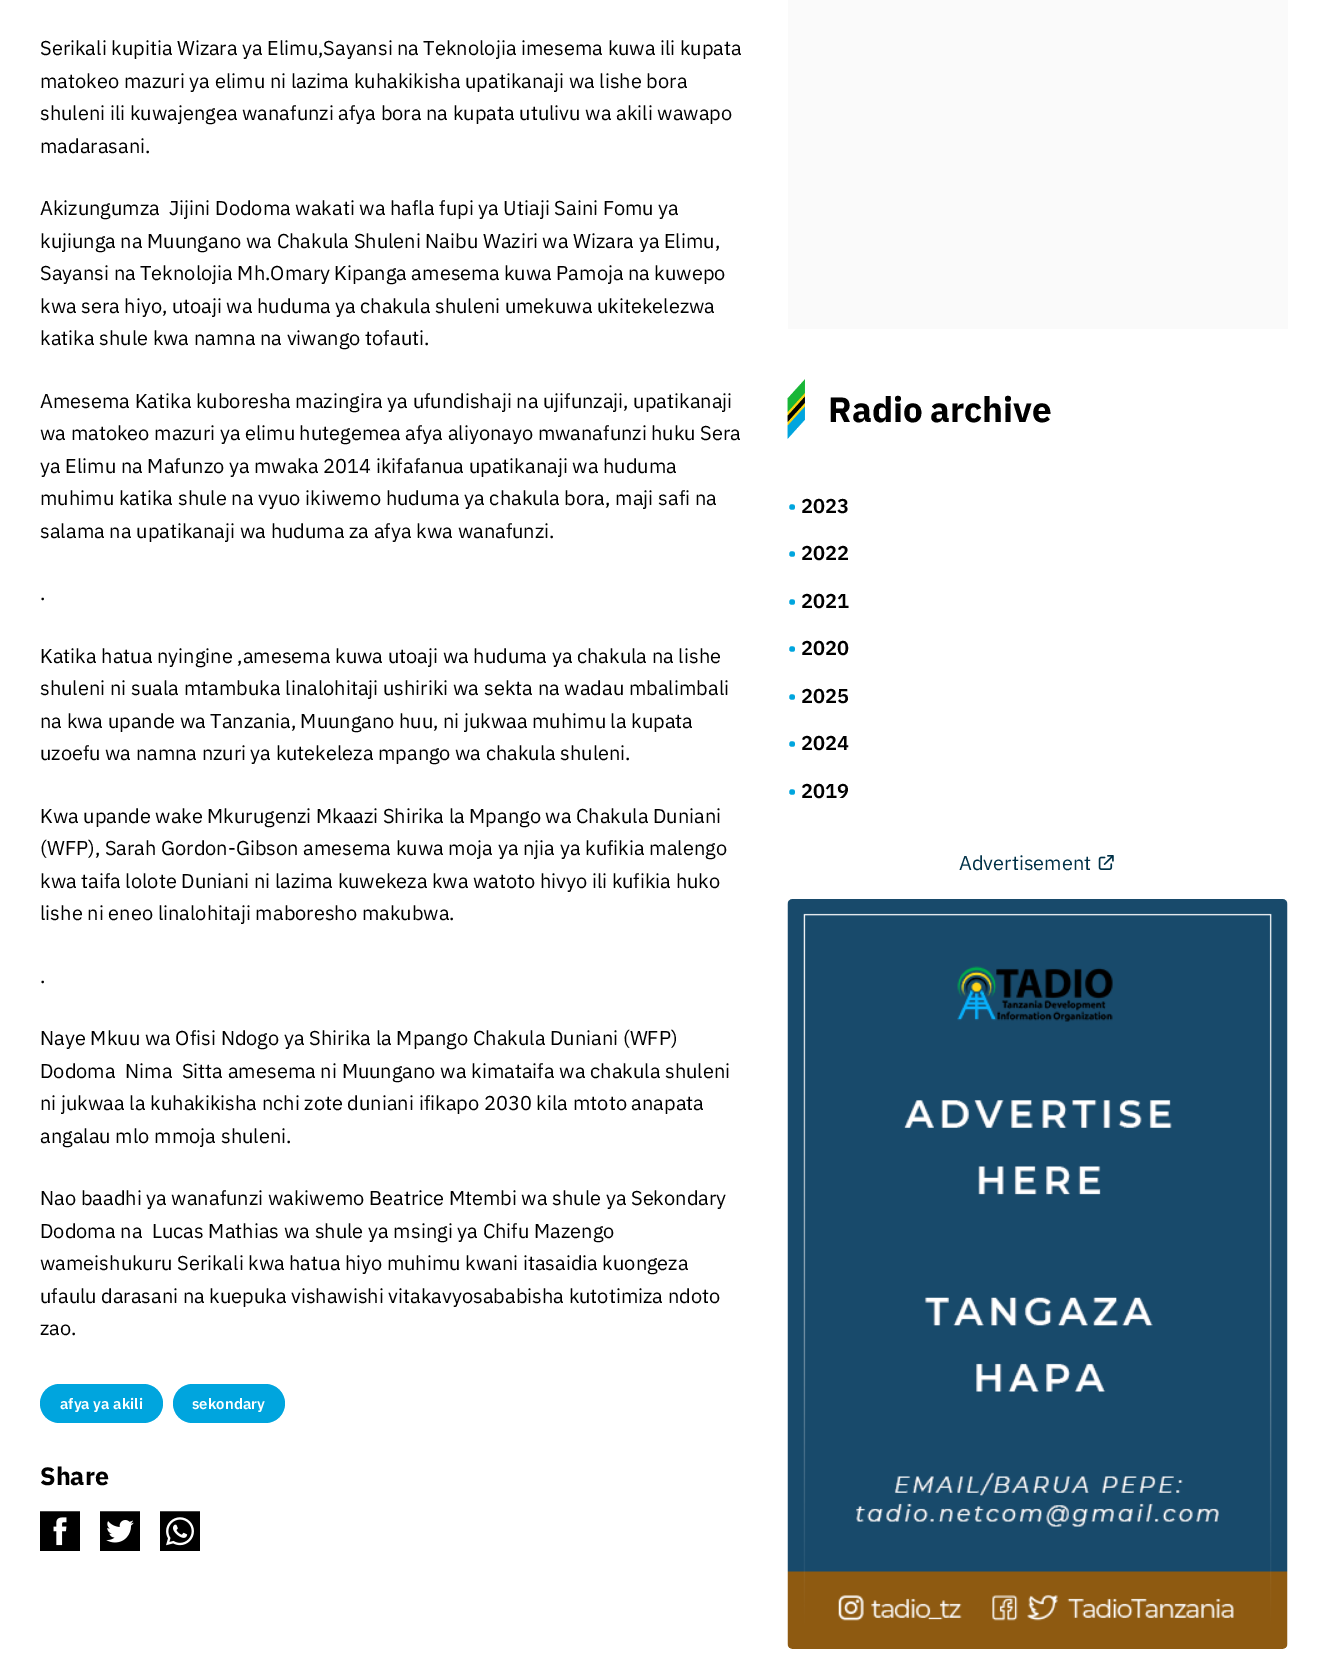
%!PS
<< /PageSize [1327 1678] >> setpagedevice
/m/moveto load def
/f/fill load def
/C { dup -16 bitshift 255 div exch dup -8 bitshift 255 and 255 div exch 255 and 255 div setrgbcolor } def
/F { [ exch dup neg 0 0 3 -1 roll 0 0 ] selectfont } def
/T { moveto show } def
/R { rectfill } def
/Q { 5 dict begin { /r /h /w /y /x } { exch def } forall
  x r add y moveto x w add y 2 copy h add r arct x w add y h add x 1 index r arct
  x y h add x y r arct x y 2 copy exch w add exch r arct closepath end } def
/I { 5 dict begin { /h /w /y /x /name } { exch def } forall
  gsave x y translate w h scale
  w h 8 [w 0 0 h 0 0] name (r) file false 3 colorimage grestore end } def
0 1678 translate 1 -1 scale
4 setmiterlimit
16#FFFFFF C
0 0 1327 1678 R
/IBMPlexSans-Regular 20 F
16#000000 C
40 55 m -.25 0 32 (Serikali kupitia Wizara ya Elimu,Sayansi na Teknolojia imesema kuwa ili kupata) widthshow
40 88 m -.1 0 32 (matokeo mazuri ya elimu ni lazima kuhakikisha upatikanaji wa lishe bora) widthshow
40 120 m -.1 0 32 (shuleni ili kuwajengea wanafunzi afya bora na kupata utulivu wa akili wawapo) widthshow
(madarasani.) 40 153 T
40 215 m -.1 0 32 (Akizungumza  Jijini Dodoma wakati wa hafla fupi ya Utiaji Saini Fomu ya) widthshow
40 248 m -.1 0 32 (kujiunga na Muungano wa Chakula Shuleni Naibu Waziri wa Wizara ya Elimu,) widthshow
40 280 m -.25 0 32 (Sayansi na Teknolojia Mh.Omary Kipanga amesema kuwa Pamoja na kuwepo) widthshow
40 313 m -.25 0 32 (kwa sera hiyo, utoaji wa huduma ya chakula shuleni umekuwa ukitekelezwa) widthshow
40 345 m -.1 0 32 (katika shule kwa namna na viwango tofauti.) widthshow
40 408 m -.1 0 32 (Amesema Katika kuboresha mazingira ya ufundishaji na ujifunzaji, upatikanaji) widthshow
40 440 m -.25 0 32 (wa matokeo mazuri ya elimu hutegemea afya aliyonayo mwanafunzi huku Sera) widthshow
40 473 m -.1 0 32 (ya Elimu na Mafunzo ya mwaka 2014 ikifafanua upatikanaji wa huduma) widthshow
(muhimu katika shule na vyuo ikiwemo huduma ya chakula bora, maji safi na) 40 505 T
(salama na upatikanaji wa huduma za afya kwa wanafunzi.) 40 538 T
(.) 40 600 T
40 663 m -.1 0 32 (Katika hatua nyingine ,amesema kuwa utoaji wa huduma ya chakula na lishe) widthshow
(shuleni ni suala mtambuka linalohitaji ushiriki wa sekta na wadau mbalimbali) 40 695 T
40 728 m -.25 0 32 (na kwa upande wa Tanzania, Muungano huu, ni jukwaa muhimu la kupata) widthshow
40 760 m -.25 0 32 (uzoefu wa namna nzuri ya kutekeleza mpango wa chakula shuleni.) widthshow
40 823 m -.25 0 32 (Kwa upande wake Mkurugenzi Mkaazi Shirika la Mpango wa Chakula Duniani) widthshow
(\(WFP\), Sarah Gordon-Gibson amesema kuwa moja ya njia ya kufikia malengo) 40 855 T
40 888 m -.25 0 32 (kwa taifa lolote Duniani ni lazima kuwekeza kwa watoto hivyo ili kufikia huko) widthshow
(lishe ni eneo linalohitaji maboresho makubwa.) 40 920 T
(.) 40 983 T
(Naye Mkuu wa Ofisi Ndogo ya Shirika la Mpango Chakula Duniani \(WFP\)) 40 1045 T
(Dodoma  Nima  Sitta amesema ni Muungano wa kimataifa wa chakula shuleni) 40 1078 T
(ni jukwaa la kuhakikisha nchi zote duniani ifikapo 2030 kila mtoto anapata) 40 1110 T
(angalau mlo mmoja shuleni.) 40 1143 T
40 1205 m -.1 0 32 (Nao baadhi ya wanafunzi wakiwemo Beatrice Mtembi wa shule ya Sekondary) widthshow
(Dodoma na  Lucas Mathias wa shule ya msingi ya Chifu Mazengo) 40 1238 T
40 1270 m -.25 0 32 (wameishukuru Serikali kwa hatua hiyo muhimu kwani itasaidia kuongeza) widthshow
40 1303 m -.25 0 32 (ufaulu darasani na kuepuka vishawishi vitakavyosababisha kutotimiza ndoto) widthshow
(zao.) 40 1335 T
16#00A5DE C
40 1384 123 39 19.5 Q f
/IBMPlexSans-SemiBold 15 F
16#FFFFFF C
(afya ya akili) 60 1409 T
16#00A5DE C
173 1384 112 39 19.5 Q f
16#FFFFFF C
(sekondary) 192 1409 T
/IBMPlexSans-Bold 25 F
16#000000 C
(Share) 40 1485 T
(1.rgb) 40 1511 40 40 I
(2.rgb) 100 1511 40 40 I
(3.rgb) 160 1511 40 40 I
16#FAFAFA C
788 0 500 329 R
(4.rgb) 787 379 18 60 I
/IBMPlexSans-Bold 35 F
16#000000 C
828 422 m -1 0 32 (Radio archive) widthshow
/IBMPlexSans-SemiBold 20 F
16#00A5DE C
(•) 788 513 T
16#000000 C
(2023) 801 513 T
16#00A5DE C
(•) 788 560 T
16#000000 C
(2022) 801 560 T
16#00A5DE C
(•) 788 608 T
16#000000 C
(2021) 801 608 T
16#00A5DE C
(•) 788 655 T
16#000000 C
(2020) 801 655 T
16#00A5DE C
(•) 788 703 T
16#000000 C
(2025) 801 703 T
16#00A5DE C
(•) 788 750 T
16#000000 C
(2024) 801 750 T
16#00A5DE C
(•) 788 798 T
16#000000 C
(2019) 801 798 T
/IBMPlexSans-Regular 20 F
16#003147 C
(Advertisement) 959 870 T
(5.rgb) 1098 855 16 15 I
(6.rgb) 787 899 501 750 I
showpage
